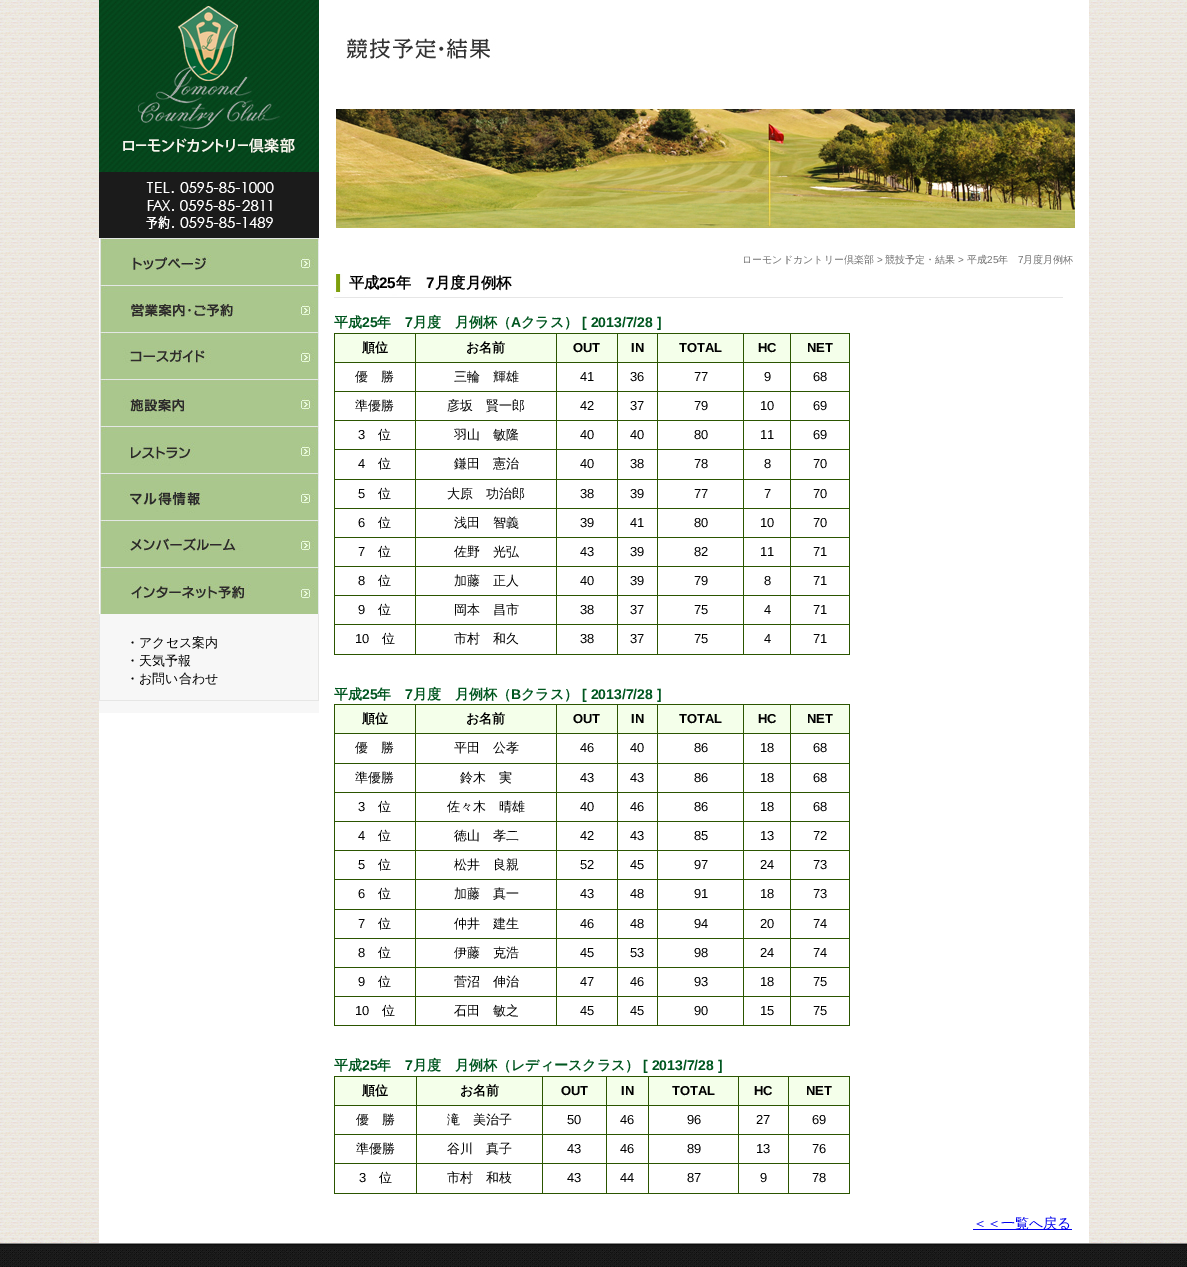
%!PS
<< /PageSize [1187 1267] >> setpagedevice
/C { dup -16 bitshift 255 div exch dup -8 bitshift 255 and 255 div exch 255 and 255 div setrgbcolor } def
/F { [ exch dup neg 0 0 3 -1 roll 0 0 ] selectfont } def
/T { moveto show } def
/R { rectfill } def
/I { 5 dict begin { /h /w /y /x /name } { exch def } forall
  gsave x y translate w h scale
  w h 8 [w 0 0 h 0 0] name (r) file false 3 colorimage grestore end } def
0 1267 translate 1 -1 scale
4 setmiterlimit
16#FFFFFF C
0 0 1187 1267 R
(1.rgb) 0 0 1187 1243 I
319 0 770 238 R
(2.rgb) 99 0 220 238 I
(3.rgb) 336 38 739 190 I
99 238 990 1005 R
16#F7F7F7 C
99 614 220 99 R
(4.rgb) 99 238 220 47 I
(5.rgb) 99 285 220 47 I
(6.rgb) 99 332 220 47 I
(7.rgb) 99 379 220 47 I
(8.rgb) 99 426 220 47 I
(9.rgb) 99 473 220 47 I
(10.rgb) 99 520 220 47 I
(11.rgb) 99 567 220 47 I
16#E6E6E5 C
318 614 1 87 R
99 700 220 1 R
99 614 1 87 R
/WenQuanYiZenHei-Medium 13 F
16#000000 C
(・アクセス案内) 126 647 T
(・天気予報) 126 665 T
(・お問い合わせ) 126 683 T
/WenQuanYiZenHei-Medium 10 F
16#707070 C
(ローモンドカントリー倶楽部) 742 263 T
/LiberationSans-Regular 10 F
(>) 877 263 T
/WenQuanYiZenHei-Medium 10 F
(競技予定・結果) 885 263 T
/LiberationSans-Regular 10 F
(>) 958 263 T
/WenQuanYiZenHei-Medium 10 F
(平成) 967 263 T
/LiberationSans-Regular 10 F
(25) 987 263 T
/WenQuanYiZenHei-Medium 10 F
(年) 998 263 T
/LiberationSans-Regular 10 F
(7) 1018 263 T
/WenQuanYiZenHei-Medium 10 F
(月度月例杯) 1023 263 T
(12.rgb) 334 274 729 24 I
/WenQuanYiZenHei-Bold 15.25 F
16#000000 C
(平成) 349 288 T
/LiberationSans-Bold 15.25 F
(25) 379 288 T
/WenQuanYiZenHei-Bold 15.25 F
(年) 396 288 T
/LiberationSans-Bold 15.25 F
(7) 426 288 T
/WenQuanYiZenHei-Bold 15.25 F
(月度月例杯) 435 288 T
/WenQuanYiZenHei-Bold 14 F
16#00561F C
(平成) 334 327 T
/LiberationSans-Bold 14 F
(25) 362 327 T
/WenQuanYiZenHei-Bold 14 F
(年) 377 327 T
/LiberationSans-Bold 14 F
(7) 405 327 T
/WenQuanYiZenHei-Bold 14 F
(月度　月例杯（) 413 327 T
/LiberationSans-Bold 14 F
(A) 511 327 T
/WenQuanYiZenHei-Bold 14 F
(クラス）) 521 327 T
/LiberationSans-Bold 14 F
([ 2013/7/28 ]) 582 327 T
16#2B5500 C
334 333 516 1 R
849 333 1 322 R
334 654 516 1 R
334 333 1 322 R
16#F4FFEA C
335 334 80 28 R
/WenQuanYiZenHei-Bold 13 F
16#000000 C
(順位) 362 352 T
16#F4FFEA C
416 334 140 28 R
16#2B5500 C
790 362 60 1 R
790 391 60 1 R
790 420 60 1 R
790 449 60 1 R
790 479 60 1 R
790 508 60 1 R
790 537 60 1 R
790 566 60 1 R
790 595 60 1 R
790 624 60 1 R
790 624 1 31 R
743 624 48 1 R
790 595 1 30 R
743 595 48 1 R
790 566 1 30 R
743 566 48 1 R
790 537 1 30 R
743 537 48 1 R
790 508 1 30 R
743 508 48 1 R
790 479 1 30 R
743 479 48 1 R
790 449 1 31 R
743 449 48 1 R
790 420 1 30 R
743 420 48 1 R
790 391 1 30 R
743 391 48 1 R
790 362 1 30 R
743 362 48 1 R
743 624 1 31 R
657 624 87 1 R
743 595 1 30 R
657 595 87 1 R
743 566 1 30 R
657 566 87 1 R
743 537 1 30 R
657 537 87 1 R
743 508 1 30 R
657 508 87 1 R
743 479 1 30 R
657 479 87 1 R
743 449 1 31 R
657 449 87 1 R
743 420 1 30 R
657 420 87 1 R
743 391 1 30 R
657 391 87 1 R
743 362 1 30 R
657 362 87 1 R
657 624 1 31 R
617 624 41 1 R
657 595 1 30 R
617 595 41 1 R
657 566 1 30 R
617 566 41 1 R
657 537 1 30 R
617 537 41 1 R
657 508 1 30 R
617 508 41 1 R
657 479 1 30 R
617 479 41 1 R
657 449 1 31 R
617 449 41 1 R
657 420 1 30 R
617 420 41 1 R
657 391 1 30 R
617 391 41 1 R
657 362 1 30 R
617 362 41 1 R
617 624 1 31 R
556 624 62 1 R
617 595 1 30 R
556 595 62 1 R
617 566 1 30 R
556 566 62 1 R
617 537 1 30 R
556 537 62 1 R
617 508 1 30 R
556 508 62 1 R
617 479 1 30 R
556 479 62 1 R
617 449 1 31 R
556 449 62 1 R
617 420 1 30 R
556 420 62 1 R
617 391 1 30 R
556 391 62 1 R
617 362 1 30 R
556 362 62 1 R
556 624 1 31 R
415 624 142 1 R
556 595 1 30 R
415 595 142 1 R
556 566 1 30 R
415 566 142 1 R
556 537 1 30 R
415 537 142 1 R
556 508 1 30 R
415 508 142 1 R
556 479 1 30 R
415 479 142 1 R
556 449 1 31 R
415 449 142 1 R
556 420 1 30 R
415 420 142 1 R
556 391 1 30 R
415 391 142 1 R
556 362 1 30 R
415 362 142 1 R
415 624 1 31 R
334 624 82 1 R
415 595 1 30 R
334 595 82 1 R
415 566 1 30 R
334 566 82 1 R
415 537 1 30 R
334 537 82 1 R
415 508 1 30 R
334 508 82 1 R
415 479 1 30 R
334 479 82 1 R
415 449 1 31 R
334 449 82 1 R
415 420 1 30 R
334 420 82 1 R
415 391 1 30 R
334 391 82 1 R
415 362 1 30 R
334 362 82 1 R
415 333 1 30 R
16#000000 C
(お名前) 466 352 T
16#F4FFEA C
557 334 60 28 R
16#2B5500 C
556 333 1 30 R
/LiberationSans-Bold 13 F
16#000000 C
(OUT) 573 352 T
16#F4FFEA C
618 334 39 28 R
16#2B5500 C
617 333 1 30 R
16#000000 C
(IN) 631 352 T
16#F4FFEA C
658 334 85 28 R
16#2B5500 C
657 333 1 30 R
16#000000 C
(TOTAL) 679 352 T
16#F4FFEA C
744 334 46 28 R
16#2B5500 C
743 333 1 30 R
16#000000 C
(HC) 758 352 T
16#F4FFEA C
791 334 58 28 R
16#2B5500 C
790 333 1 30 R
16#000000 C
(NET) 807 352 T
/WenQuanYiZenHei-Medium 13 F
(優　勝) 355 381 T
(三輪　輝雄) 454 381 T
/LiberationSans-Regular 13 F
(41) 580 381 T
(36) 630 381 T
(77) 694 381 T
(9) 764 381 T
(68) 813 381 T
/WenQuanYiZenHei-Medium 13 F
(準優勝) 355 410 T
(彦坂　賢一郎) 447 410 T
/LiberationSans-Regular 13 F
(42) 580 410 T
(37) 630 410 T
(79) 694 410 T
(10) 760 410 T
(69) 813 410 T
(3) 358 439 T
/WenQuanYiZenHei-Medium 13 F
(位) 378 439 T
(羽山　敏隆) 454 439 T
/LiberationSans-Regular 13 F
(40) 580 439 T
(40) 630 439 T
(80) 694 439 T
(11) 760 439 T
(69) 813 439 T
(4) 358 468 T
/WenQuanYiZenHei-Medium 13 F
(位) 378 468 T
(鎌田　憲治) 454 468 T
/LiberationSans-Regular 13 F
(40) 580 468 T
(38) 630 468 T
(78) 694 468 T
(8) 764 468 T
(70) 813 468 T
(5) 358 498 T
/WenQuanYiZenHei-Medium 13 F
(位) 378 498 T
(大原　功治郎) 447 498 T
/LiberationSans-Regular 13 F
(38) 580 498 T
(39) 630 498 T
(77) 694 498 T
(7) 764 498 T
(70) 813 498 T
(6) 358 527 T
/WenQuanYiZenHei-Medium 13 F
(位) 378 527 T
(浅田　智義) 454 527 T
/LiberationSans-Regular 13 F
(39) 580 527 T
(41) 630 527 T
(80) 694 527 T
(10) 760 527 T
(70) 813 527 T
(7) 358 556 T
/WenQuanYiZenHei-Medium 13 F
(位) 378 556 T
(佐野　光弘) 454 556 T
/LiberationSans-Regular 13 F
(43) 580 556 T
(39) 630 556 T
(82) 694 556 T
(11) 760 556 T
(71) 813 556 T
(8) 358 585 T
/WenQuanYiZenHei-Medium 13 F
(位) 378 585 T
(加藤　正人) 454 585 T
/LiberationSans-Regular 13 F
(40) 580 585 T
(39) 630 585 T
(79) 694 585 T
(8) 764 585 T
(71) 813 585 T
(9) 358 614 T
/WenQuanYiZenHei-Medium 13 F
(位) 378 614 T
(岡本　昌市) 454 614 T
/LiberationSans-Regular 13 F
(38) 580 614 T
(37) 630 614 T
(75) 694 614 T
(4) 764 614 T
(71) 813 614 T
(10) 355 643 T
/WenQuanYiZenHei-Medium 13 F
(位) 382 643 T
(市村　和久) 454 643 T
/LiberationSans-Regular 13 F
(38) 580 643 T
(37) 630 643 T
(75) 694 643 T
(4) 764 643 T
(71) 813 643 T
/WenQuanYiZenHei-Bold 14 F
16#00561F C
(平成) 334 699 T
/LiberationSans-Bold 14 F
(25) 362 699 T
/WenQuanYiZenHei-Bold 14 F
(年) 377 699 T
/LiberationSans-Bold 14 F
(7) 405 699 T
/WenQuanYiZenHei-Bold 14 F
(月度　月例杯（) 413 699 T
/LiberationSans-Bold 14 F
(B) 511 699 T
/WenQuanYiZenHei-Bold 14 F
(クラス）) 521 699 T
/LiberationSans-Bold 14 F
([ 2013/7/28 ]) 582 699 T
16#2B5500 C
334 704 516 1 R
849 704 1 322 R
334 1025 516 1 R
334 704 1 322 R
16#F4FFEA C
335 705 80 28 R
/WenQuanYiZenHei-Bold 13 F
16#000000 C
(順位) 362 723 T
16#F4FFEA C
416 705 140 28 R
16#2B5500 C
790 733 60 1 R
790 763 60 1 R
790 792 60 1 R
790 821 60 1 R
790 850 60 1 R
790 879 60 1 R
790 909 60 1 R
790 938 60 1 R
790 967 60 1 R
790 996 60 1 R
790 996 1 30 R
743 996 48 1 R
790 967 1 30 R
743 967 48 1 R
790 938 1 30 R
743 938 48 1 R
790 909 1 30 R
743 909 48 1 R
790 879 1 31 R
743 879 48 1 R
790 850 1 30 R
743 850 48 1 R
790 821 1 30 R
743 821 48 1 R
790 792 1 30 R
743 792 48 1 R
790 763 1 30 R
743 763 48 1 R
790 733 1 31 R
743 733 48 1 R
743 996 1 30 R
657 996 87 1 R
743 967 1 30 R
657 967 87 1 R
743 938 1 30 R
657 938 87 1 R
743 909 1 30 R
657 909 87 1 R
743 879 1 31 R
657 879 87 1 R
743 850 1 30 R
657 850 87 1 R
743 821 1 30 R
657 821 87 1 R
743 792 1 30 R
657 792 87 1 R
743 763 1 30 R
657 763 87 1 R
743 733 1 31 R
657 733 87 1 R
657 996 1 30 R
617 996 41 1 R
657 967 1 30 R
617 967 41 1 R
657 938 1 30 R
617 938 41 1 R
657 909 1 30 R
617 909 41 1 R
657 879 1 31 R
617 879 41 1 R
657 850 1 30 R
617 850 41 1 R
657 821 1 30 R
617 821 41 1 R
657 792 1 30 R
617 792 41 1 R
657 763 1 30 R
617 763 41 1 R
657 733 1 31 R
617 733 41 1 R
617 996 1 30 R
556 996 62 1 R
617 967 1 30 R
556 967 62 1 R
617 938 1 30 R
556 938 62 1 R
617 909 1 30 R
556 909 62 1 R
617 879 1 31 R
556 879 62 1 R
617 850 1 30 R
556 850 62 1 R
617 821 1 30 R
556 821 62 1 R
617 792 1 30 R
556 792 62 1 R
617 763 1 30 R
556 763 62 1 R
617 733 1 31 R
556 733 62 1 R
556 996 1 30 R
415 996 142 1 R
556 967 1 30 R
415 967 142 1 R
556 938 1 30 R
415 938 142 1 R
556 909 1 30 R
415 909 142 1 R
556 879 1 31 R
415 879 142 1 R
556 850 1 30 R
415 850 142 1 R
556 821 1 30 R
415 821 142 1 R
556 792 1 30 R
415 792 142 1 R
556 763 1 30 R
415 763 142 1 R
556 733 1 31 R
415 733 142 1 R
415 996 1 30 R
334 996 82 1 R
415 967 1 30 R
334 967 82 1 R
415 938 1 30 R
334 938 82 1 R
415 909 1 30 R
334 909 82 1 R
415 879 1 31 R
334 879 82 1 R
415 850 1 30 R
334 850 82 1 R
415 821 1 30 R
334 821 82 1 R
415 792 1 30 R
334 792 82 1 R
415 763 1 30 R
334 763 82 1 R
415 733 1 31 R
334 733 82 1 R
415 704 1 30 R
16#000000 C
(お名前) 466 723 T
16#F4FFEA C
557 705 60 28 R
16#2B5500 C
556 704 1 30 R
/LiberationSans-Bold 13 F
16#000000 C
(OUT) 573 723 T
16#F4FFEA C
618 705 39 28 R
16#2B5500 C
617 704 1 30 R
16#000000 C
(IN) 631 723 T
16#F4FFEA C
658 705 85 28 R
16#2B5500 C
657 704 1 30 R
16#000000 C
(TOTAL) 679 723 T
16#F4FFEA C
744 705 46 28 R
16#2B5500 C
743 704 1 30 R
16#000000 C
(HC) 758 723 T
16#F4FFEA C
791 705 58 28 R
16#2B5500 C
790 704 1 30 R
16#000000 C
(NET) 807 723 T
/WenQuanYiZenHei-Medium 13 F
(優　勝) 355 752 T
(平田　公孝) 454 752 T
/LiberationSans-Regular 13 F
(46) 580 752 T
(40) 630 752 T
(86) 694 752 T
(18) 760 752 T
(68) 813 752 T
/WenQuanYiZenHei-Medium 13 F
(準優勝) 355 782 T
(鈴木　実) 460 782 T
/LiberationSans-Regular 13 F
(43) 580 782 T
(43) 630 782 T
(86) 694 782 T
(18) 760 782 T
(68) 813 782 T
(3) 358 811 T
/WenQuanYiZenHei-Medium 13 F
(位) 378 811 T
(佐々木　晴雄) 447 811 T
/LiberationSans-Regular 13 F
(40) 580 811 T
(46) 630 811 T
(86) 694 811 T
(18) 760 811 T
(68) 813 811 T
(4) 358 840 T
/WenQuanYiZenHei-Medium 13 F
(位) 378 840 T
(徳山　孝二) 454 840 T
/LiberationSans-Regular 13 F
(42) 580 840 T
(43) 630 840 T
(85) 694 840 T
(13) 760 840 T
(72) 813 840 T
(5) 358 869 T
/WenQuanYiZenHei-Medium 13 F
(位) 378 869 T
(松井　良親) 454 869 T
/LiberationSans-Regular 13 F
(52) 580 869 T
(45) 630 869 T
(97) 694 869 T
(24) 760 869 T
(73) 813 869 T
(6) 358 898 T
/WenQuanYiZenHei-Medium 13 F
(位) 378 898 T
(加藤　真一) 454 898 T
/LiberationSans-Regular 13 F
(43) 580 898 T
(48) 630 898 T
(91) 694 898 T
(18) 760 898 T
(73) 813 898 T
(7) 358 928 T
/WenQuanYiZenHei-Medium 13 F
(位) 378 928 T
(仲井　建生) 454 928 T
/LiberationSans-Regular 13 F
(46) 580 928 T
(48) 630 928 T
(94) 694 928 T
(20) 760 928 T
(74) 813 928 T
(8) 358 957 T
/WenQuanYiZenHei-Medium 13 F
(位) 378 957 T
(伊藤　克浩) 454 957 T
/LiberationSans-Regular 13 F
(45) 580 957 T
(53) 630 957 T
(98) 694 957 T
(24) 760 957 T
(74) 813 957 T
(9) 358 986 T
/WenQuanYiZenHei-Medium 13 F
(位) 378 986 T
(菅沼　伸治) 454 986 T
/LiberationSans-Regular 13 F
(47) 580 986 T
(46) 630 986 T
(93) 694 986 T
(18) 760 986 T
(75) 813 986 T
(10) 355 1015 T
/WenQuanYiZenHei-Medium 13 F
(位) 382 1015 T
(石田　敏之) 454 1015 T
/LiberationSans-Regular 13 F
(45) 580 1015 T
(45) 630 1015 T
(90) 694 1015 T
(15) 760 1015 T
(75) 813 1015 T
/WenQuanYiZenHei-Bold 14 F
16#00561F C
(平成) 334 1070 T
/LiberationSans-Bold 14 F
(25) 362 1070 T
/WenQuanYiZenHei-Bold 14 F
(年) 377 1070 T
/LiberationSans-Bold 14 F
(7) 405 1070 T
/WenQuanYiZenHei-Bold 14 F
(月度　月例杯（レディースクラス）) 413 1070 T
/LiberationSans-Bold 14 F
([ 2013/7/28 ]) 643 1070 T
16#2B5500 C
334 1076 516 1 R
849 1076 1 118 R
334 1193 516 1 R
334 1076 1 118 R
16#F4FFEA C
335 1077 81 28 R
/WenQuanYiZenHei-Bold 13 F
16#000000 C
(順位) 362 1095 T
16#F4FFEA C
417 1077 125 28 R
16#2B5500 C
788 1105 62 1 R
788 1134 62 1 R
788 1163 62 1 R
788 1163 1 31 R
738 1163 51 1 R
788 1134 1 30 R
738 1134 51 1 R
788 1105 1 30 R
738 1105 51 1 R
738 1163 1 31 R
648 1163 91 1 R
738 1134 1 30 R
648 1134 91 1 R
738 1105 1 30 R
648 1105 91 1 R
648 1163 1 31 R
606 1163 43 1 R
648 1134 1 30 R
606 1134 43 1 R
648 1105 1 30 R
606 1105 43 1 R
606 1163 1 31 R
542 1163 65 1 R
606 1134 1 30 R
542 1134 65 1 R
606 1105 1 30 R
542 1105 65 1 R
542 1163 1 31 R
416 1163 127 1 R
542 1134 1 30 R
416 1134 127 1 R
542 1105 1 30 R
416 1105 127 1 R
416 1163 1 31 R
334 1163 83 1 R
416 1134 1 30 R
334 1134 83 1 R
416 1105 1 30 R
334 1105 83 1 R
416 1076 1 30 R
16#000000 C
(お名前) 460 1095 T
16#F4FFEA C
543 1077 63 28 R
16#2B5500 C
542 1076 1 30 R
/LiberationSans-Bold 13 F
16#000000 C
(OUT) 561 1095 T
16#F4FFEA C
607 1077 41 28 R
16#2B5500 C
606 1076 1 30 R
16#000000 C
(IN) 621 1095 T
16#F4FFEA C
649 1077 89 28 R
16#2B5500 C
648 1076 1 30 R
16#000000 C
(TOTAL) 672 1095 T
16#F4FFEA C
739 1077 49 28 R
16#2B5500 C
738 1076 1 30 R
16#000000 C
(HC) 754 1095 T
16#F4FFEA C
789 1077 60 28 R
16#2B5500 C
788 1076 1 30 R
16#000000 C
(NET) 806 1095 T
/WenQuanYiZenHei-Medium 13 F
(優　勝) 356 1124 T
(滝　美治子) 447 1124 T
/LiberationSans-Regular 13 F
(50) 567 1124 T
(46) 620 1124 T
(96) 687 1124 T
(27) 756 1124 T
(69) 812 1124 T
/WenQuanYiZenHei-Medium 13 F
(準優勝) 356 1153 T
(谷川　真子) 447 1153 T
/LiberationSans-Regular 13 F
(43) 567 1153 T
(46) 620 1153 T
(89) 687 1153 T
(13) 756 1153 T
(76) 812 1153 T
(3) 359 1182 T
/WenQuanYiZenHei-Medium 13 F
(位) 379 1182 T
(市村　和枝) 447 1182 T
/LiberationSans-Regular 13 F
(43) 567 1182 T
(44) 620 1182 T
(87) 687 1182 T
(9) 760 1182 T
(78) 812 1182 T
16#0000EE C
973 1229 99 1 R
/WenQuanYiZenHei-Medium 14 F
(＜＜一覧へ戻る) 973 1228 T
(13.rgb) 0 1243 1187 24 I
showpage
